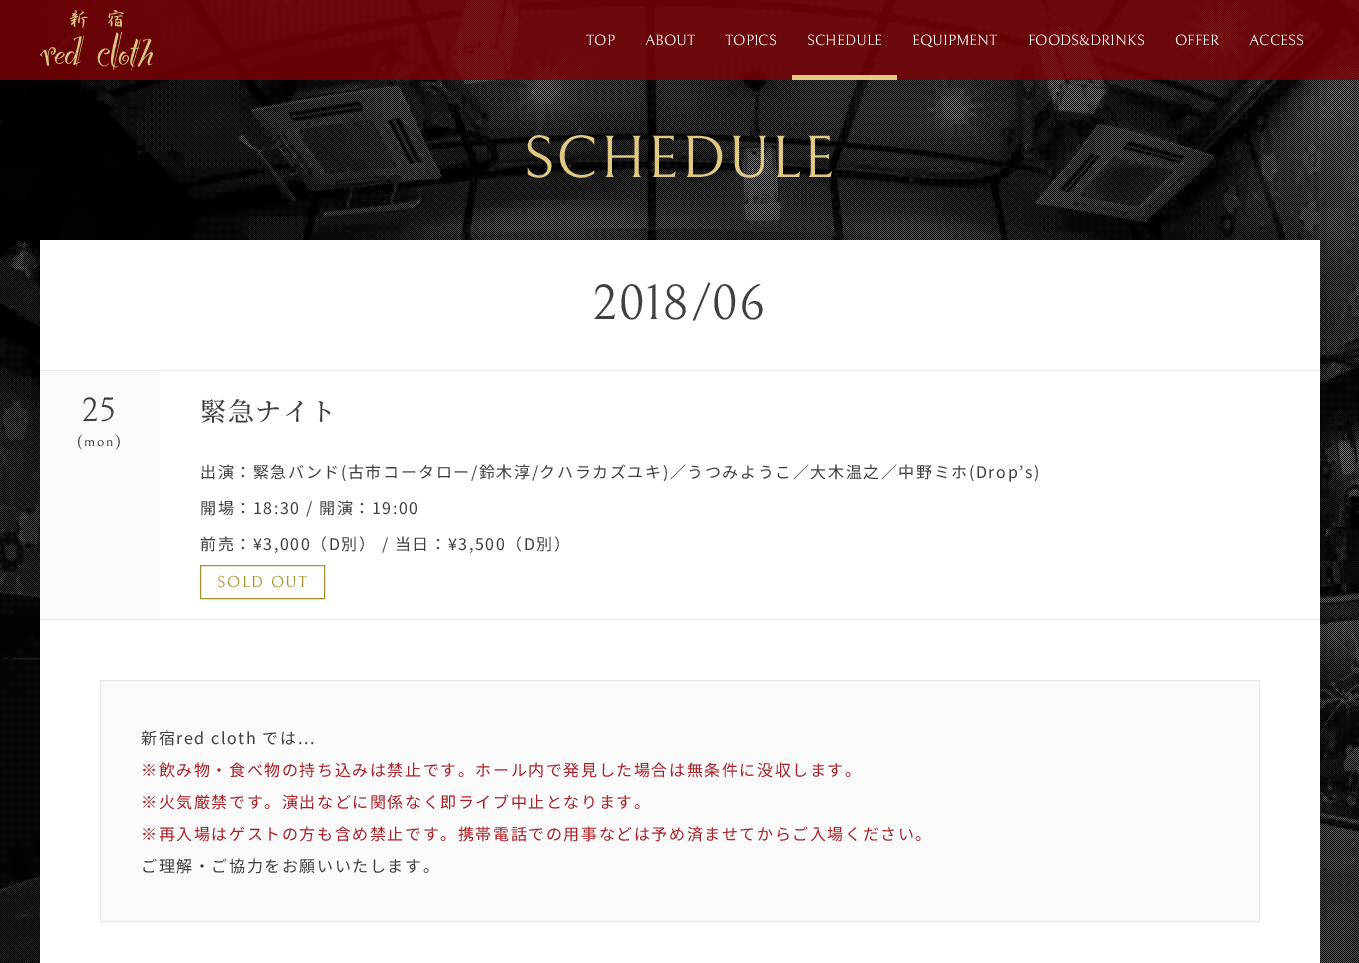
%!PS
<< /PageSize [1359 963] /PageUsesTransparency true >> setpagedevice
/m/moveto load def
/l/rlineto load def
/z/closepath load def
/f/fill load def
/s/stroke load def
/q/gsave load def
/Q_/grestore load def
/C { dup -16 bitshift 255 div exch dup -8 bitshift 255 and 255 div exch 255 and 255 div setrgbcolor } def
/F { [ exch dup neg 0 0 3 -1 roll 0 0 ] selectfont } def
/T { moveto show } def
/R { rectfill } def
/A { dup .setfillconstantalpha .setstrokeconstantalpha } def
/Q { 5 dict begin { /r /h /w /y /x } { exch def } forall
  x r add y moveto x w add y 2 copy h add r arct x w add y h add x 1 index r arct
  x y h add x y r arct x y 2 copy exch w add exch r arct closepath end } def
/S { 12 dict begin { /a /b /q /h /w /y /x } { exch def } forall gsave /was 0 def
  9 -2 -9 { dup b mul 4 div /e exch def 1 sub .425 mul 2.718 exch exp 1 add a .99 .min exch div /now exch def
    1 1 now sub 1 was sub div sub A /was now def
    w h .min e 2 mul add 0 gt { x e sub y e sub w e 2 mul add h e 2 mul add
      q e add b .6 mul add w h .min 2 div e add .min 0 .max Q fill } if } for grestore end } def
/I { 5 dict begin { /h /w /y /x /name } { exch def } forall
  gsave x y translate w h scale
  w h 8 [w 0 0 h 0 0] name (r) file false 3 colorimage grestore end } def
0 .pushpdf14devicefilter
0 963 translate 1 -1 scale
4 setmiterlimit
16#FFFFFF C
0 0 1359 963 R
(2.rgb) 0 0 1359 963 I
(3.rgb) 0 0 1359 963 I
0.8 A
16#7E0005 C
0 0 1359 80 R
1 A
(1.rgb) 40 10 113 60 I
/Bellefair-Regular 15 F
16#FFFFFF C
(TOP) 586 45 T
(ABOUT) 645 45 T
(TOPICS) 725 45 T
(SCHEDULE) 807 45 T
16#E0CA82 C
792 75 105 5 R
16#FFFFFF C
(EQUIPMENT) 912 45 T
(FOODS&DRINKS) 1028 45 T
(OFFER) 1175 45 T
(ACCESS) 1249 45 T
/Bellefair-Regular 60 F
16#E0CA82 C
523 177 m 1.6 0 (SCHEDULE) ashow
16#000000 C
40 240 1280 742 0 10 .3 S
16#FFFFFF C
40 240 1280 723 R
/Bellefair-Regular 50 F
16#404040 C
593 319 m 1.6 0 (2018/06) ashow
16#EAEAEA C
40 370 1280 1 R
40 619 1280 1 R
16#FAFAFA C
40 371 120 248 R
/Bellefair-Regular 34 F
16#404040 C
82 421 m 1.6 0 (25) ashow
/Bellefair-Regular 16 F
77 446 m 1.6 0 (\(mon\)) ashow
/NotoSerifJP-Medium 26 F
200 421 m 1.6 0 (緊急ナイト) ashow
/NotoSansJP-Regular 16 F
200 478 m 1.6 0 (出演：緊急バンド\(古市コータロー/鈴木淳/クハラカズユキ\)／うつみようこ／大木温之／中野ミホ\(Drop’s\)) ashow
200 514 m 1.6 0 (開場：18:30 / 開演：19:00) ashow
200 550 m 1.6 0 (前売：¥3,000（D別） / 当日：¥3,500（D別）) ashow
16#AB8E2E C
200.5 565.5 124 33 rectstroke
/Bellefair-Regular 16 F
217 587 m 1.6 0 (SOLD OUT) ashow
16#FAFAFA C
100.5 680.5 m 1159 0 l 0 241 l -1159 0 l z q f Q_
16#EAEAEA C
s
/NotoSansJP-Regular 16 F
16#404040 C
141 744 m 1.6 0 (新宿red cloth では...) ashow
16#A82127 C
141 776 m 1.6 0 (※飲み物・食べ物の持ち込みは禁止です。ホール内で発見した場合は無条件に没収します。) ashow
141 808 m 1.6 0 (※火気厳禁です。演出などに関係なく即ライブ中止となります。) ashow
141 840 m 1.6 0 (※再入場はゲストの方も含め禁止です。携帯電話での用事などは予め済ませてからご入場ください。) ashow
16#404040 C
141 872 m 1.6 0 (ご理解・ご協力をお願いいたします。) ashow
.poppdf14devicefilter showpage
